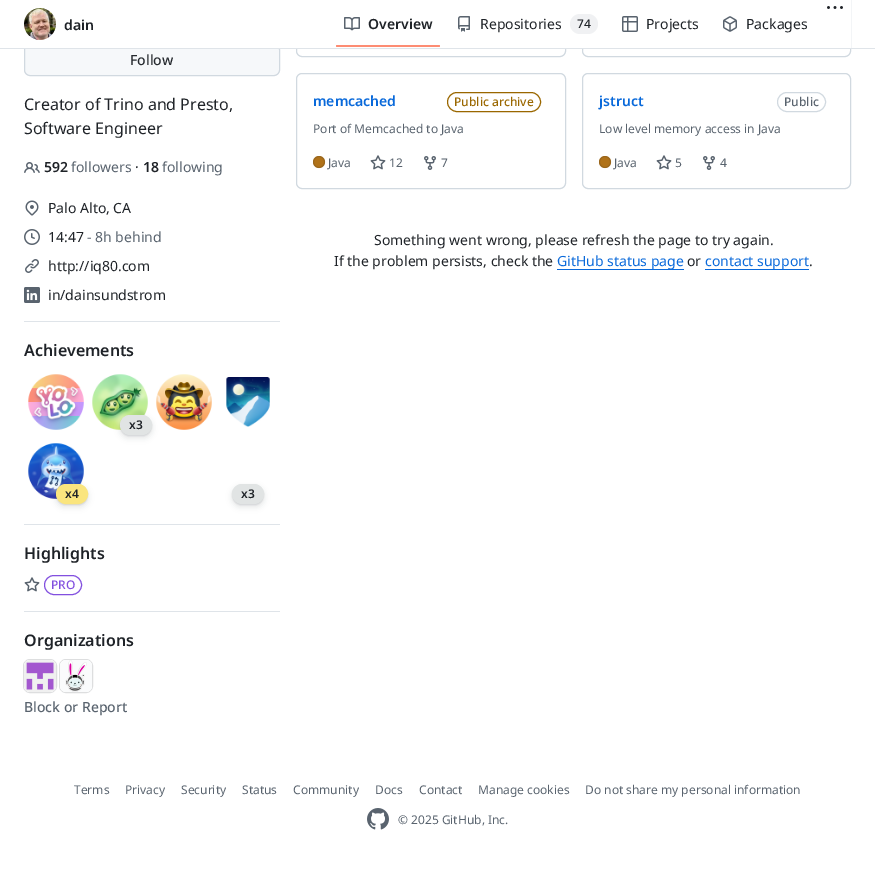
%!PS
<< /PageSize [875 872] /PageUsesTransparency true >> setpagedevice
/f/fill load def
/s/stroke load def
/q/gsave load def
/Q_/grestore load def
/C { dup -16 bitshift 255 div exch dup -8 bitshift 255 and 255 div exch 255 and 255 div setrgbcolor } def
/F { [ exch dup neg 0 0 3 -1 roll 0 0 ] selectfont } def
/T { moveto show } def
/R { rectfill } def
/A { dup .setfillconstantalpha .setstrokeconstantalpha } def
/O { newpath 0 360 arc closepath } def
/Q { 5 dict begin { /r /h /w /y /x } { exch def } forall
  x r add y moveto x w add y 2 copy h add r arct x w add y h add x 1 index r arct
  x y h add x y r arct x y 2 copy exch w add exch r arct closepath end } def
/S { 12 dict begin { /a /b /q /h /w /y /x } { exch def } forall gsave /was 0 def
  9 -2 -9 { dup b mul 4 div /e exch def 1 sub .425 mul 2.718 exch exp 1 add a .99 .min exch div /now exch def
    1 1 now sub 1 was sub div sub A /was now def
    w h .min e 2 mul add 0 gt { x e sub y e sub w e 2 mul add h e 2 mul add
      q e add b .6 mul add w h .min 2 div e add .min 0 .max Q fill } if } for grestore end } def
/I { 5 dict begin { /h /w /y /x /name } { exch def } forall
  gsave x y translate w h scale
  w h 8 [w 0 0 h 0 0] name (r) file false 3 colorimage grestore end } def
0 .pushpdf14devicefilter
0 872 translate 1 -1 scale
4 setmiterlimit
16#FFFFFF C
0 0 875 872 R
16#F6F8FA C
24.5 44.5 255 31 5.5 Q q f Q_
16#D1D9E0 C
s
296.5 -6.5 269 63 5.5 Q s
582.5 -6.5 268 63 5.5 Q s
16#FFFFFF C
24 0 827 48 R
16#DFE4E9 C
0 48 875 1 R
(1.rgb) 827 6 16 3 I
(2.rgb) 344 17 16 14 I
/NotoSans-SemiBold 14 F
16#1F2328 C
(Overview) 368 29 T
16#FD8C73 C
336 45 104 2 1 Q f
(3.rgb) 458 16 12 16 I
/NotoSans-Regular 14 F
16#1F2328 C
(Repositories) 480 29 T
16#F0F1F3 C
570 14 28 20 10 Q f
/NotoSans-Medium 12 F
16#1F2328 C
(74) 577 28 T
(4.rgb) 622 16 16 16 I
/NotoSans-Regular 14 F
(Projects) 646 29 T
(5.rgb) 723 16 14 16 I
(Packages) 746 29 T
(6.rgb) 24 8 32 32 I
/NotoSans-SemiBold 14 F
(dain) 64 30 T
/NotoSans-Medium 14 F
16#25292E C
(Follow) 130 65 T
/NotoSans-Regular 16 F
16#1F2328 C
(Creator of Trino and Presto,) 24 110 T
(Software Engineer) 24 134 T
(7.rgb) 24 162 16 11 I
/NotoSans-SemiBold 14 F
(592) 44 172 T
/NotoSans-Regular 14 F
16#59636E C
(followers) 71 172 T
16#1F2328 C
(·) 135 172 T
/NotoSans-SemiBold 14 F
(18) 143 172 T
/NotoSans-Regular 14 F
16#59636E C
(following) 162 172 T
(8.rgb) 25 200 14 16 I
16#1F2328 C
(Palo Alto, CA) 48 213 T
(9.rgb) 24 229 16 16 I
(14:47) 48 242 T
16#59636E C
(- 8h behind) 87 242 T
(10.rgb) 25 259 14 14 I
16#1F2328 C
(http://iq80.com) 48 271 T
(11.rgb) 24 287 16 16 I
(in/dainsundstrom) 48 300 T
16#DFE4E9 C
24 321 256 1 R
/NotoSans-SemiBold 16 F
16#1F2328 C
(Achievements) 24 356 T
(12.rgb) 28 374 56 56 I
(13.rgb) 92 374 56 56 I
16#25292E C
120 418 32 20 10 3 .12 S
120 416 32 20 10 .5 .1 S
16#E1E4E4 C
120.5 415.5 31 19 9.5 Q q f Q_
s
/NotoSans-SemiBold 12 F
16#1F2328 C
(x3) 129 429 T
(14.rgb) 156 374 56 56 I
(15.rgb) 226 377 44 50 I
(16.rgb) 28 443 56 56 I
16#25292E C
56 487 32 20 10 3 .12 S
56 485 32 20 10 .5 .1 S
16#FAE57E C
56.5 484.5 31 19 9.5 Q q f Q_
s
16#1F2328 C
(x4) 65 498 T
16#25292E C
232 487 32 20 10 3 .12 S
232 485 32 20 10 .5 .1 S
16#E1E4E4 C
232.5 484.5 31 19 9.5 Q q f Q_
s
16#1F2328 C
(x3) 241 498 T
16#DFE4E9 C
24 524 256 1 R
/NotoSans-SemiBold 16 F
16#1F2328 C
(Highlights) 24 559 T
(17.rgb) 24 577 16 15 I
16#8250DF C
44.5 575.5 37 19 9.5 Q s
/NotoSans-Medium 12 F
(PRO) 51 589 T
16#DFE4E9 C
24 611 256 1 R
/NotoSans-SemiBold 16 F
16#1F2328 C
(Organizations) 24 646 T
16#DDDEDF C
23.5 659.5 33 33 6.5 Q s
(18.rgb) 24 660 32 32 I
59.5 659.5 33 33 6.5 Q s
(19.rgb) 60 660 32 32 I
/NotoSans-Medium 14 F
16#59636E C
(Block or Report) 24 712 T
16#D1D9E0 C
296.5 73.5 269 115 5.5 Q s
/NotoSans-SemiBold 14 F
16#0969DA C
(memcached) 313 106 T
16#9A6700 C
447.5 92.5 93 19 9.5 Q s
/NotoSans-Medium 12 F
(Public archive) 454 106 T
/NotoSans-Regular 12 F
16#59636E C
(Port of Memcached to Java) 313 133 T
16#B07219 C
319 162 6 O f
0.15 A
16#1F2328 C
319 162 5.5 O s
1 A
16#59636E C
(Java) 328 167 T
(17.rgb) 370 155 16 15 I
(12) 389 167 T
(20.rgb) 424 156 12 14 I
(7) 441 167 T
16#D1D9E0 C
582.5 73.5 268 115 5.5 Q s
/NotoSans-SemiBold 14 F
16#0969DA C
(jstruct) 599 106 T
16#D1D9E0 C
777.5 92.5 48 19 9.5 Q s
/NotoSans-Medium 12 F
16#59636E C
(Public) 784 106 T
/NotoSans-Regular 12 F
(Low level memory access in Java) 599 133 T
16#B07219 C
605 162 6 O f
0.15 A
16#1F2328 C
605 162 5.5 O s
1 A
16#59636E C
(Java) 614 167 T
(17.rgb) 656 155 16 15 I
(5) 675 167 T
(20.rgb) 703 156 12 14 I
(4) 720 167 T
/NotoSans-Regular 14 F
16#1F2328 C
(Something went wrong, please refresh the page to try again.) 374 245 T
(If the problem persists, check the) 334 266 T
16#0969DA C
557 269 127 1 R
(GitHub status page) 557 266 T
16#1F2328 C
(or) 687 266 T
16#0969DA C
705 269 104 1 R
(contact support) 705 266 T
16#1F2328 C
(.) 809 266 T
/NotoSans-Regular 12 F
16#59636E C
(Terms) 74 794 T
(Privacy) 125 794 T
(Security) 181 794 T
(Status) 242 794 T
(Community) 293 794 T
(Docs) 375 794 T
(Contact) 419 794 T
(Manage cookies) 478 794 T
(Do not share my personal information) 585 794 T
(21.rgb) 367 808 22 22 I
(© 2025 GitHub, Inc.) 398 824 T
.poppdf14devicefilter showpage
